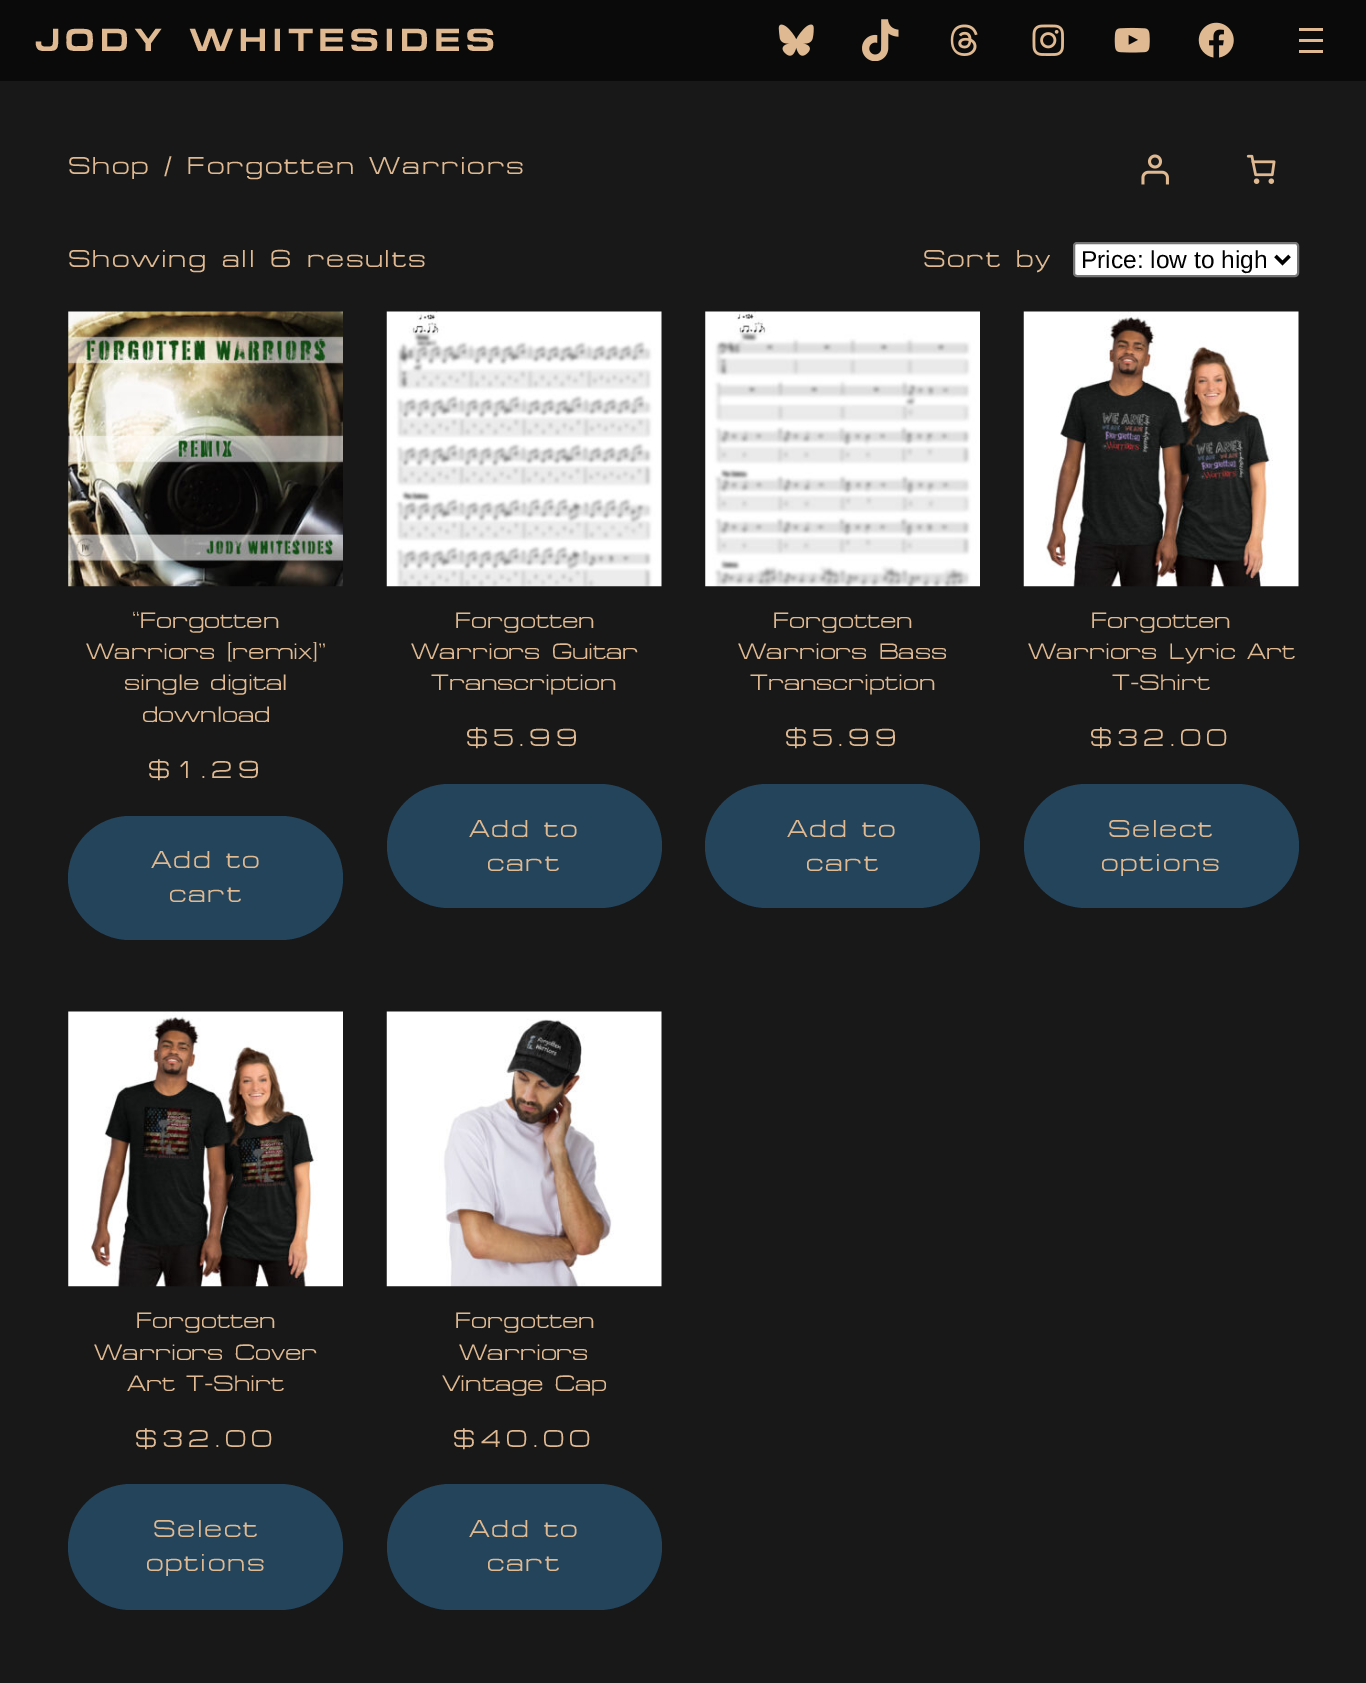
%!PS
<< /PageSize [1366 1683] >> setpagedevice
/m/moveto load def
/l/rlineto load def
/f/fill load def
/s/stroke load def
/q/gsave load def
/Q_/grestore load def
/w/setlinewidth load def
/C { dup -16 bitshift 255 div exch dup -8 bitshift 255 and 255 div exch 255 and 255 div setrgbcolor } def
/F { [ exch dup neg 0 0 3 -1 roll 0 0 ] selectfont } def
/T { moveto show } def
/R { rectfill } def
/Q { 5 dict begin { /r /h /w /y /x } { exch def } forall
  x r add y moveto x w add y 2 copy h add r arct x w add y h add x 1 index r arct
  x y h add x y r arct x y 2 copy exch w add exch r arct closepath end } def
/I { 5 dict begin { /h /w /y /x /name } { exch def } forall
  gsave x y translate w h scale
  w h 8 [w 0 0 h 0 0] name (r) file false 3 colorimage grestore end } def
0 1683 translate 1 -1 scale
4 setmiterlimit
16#181818 C
0 0 1366 1683 R
16#0A0A0A C
0 0 1366 81 R
/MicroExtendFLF-Bold 32 F
16#DEB992 C
35 51 m 5.25 0 (JODY WHITESIDES) ashow
(1.rgb) 778 24 36 32 I
(2.rgb) 862 19 37 42 I
(3.rgb) 950 24 28 32 I
(4.rgb) 1032 24 32 32 I
(5.rgb) 1114 27 36 26 I
(6.rgb) 1198 22 36 36 I
1299 28 24 3 R
1299 39 24 3 R
1299 50 24 3 R
/MicroExtendFLF-Medium 24.5 F
68 174 m 1.75 0 (Shop / Forgotten Warriors) ashow
(7.rgb) 1141 154 28 31 I
(8.rgb) 1246 154 30 30 I
68 267 m 1.75 0 (Showing all 6 results) ashow
923 267 m 1.75 0 (Sort by) ashow
16#FFFFFF C
1074 243 224 33 3 Q q f Q_
16#767676 C
2 w
s
16#000000 C
3.5 w
1275.5 256 m 7 7 l 7 -7 l s
/LiberationSans-Regular 24.5 F
(Price: low to high) 1081 268 T
(9.rgb) 68 311 275 276 I
/MicroExtendFLF-Medium 22.4 F
16#DEB992 C
(“Forgotten) 132 628 T
(Warriors [remix]”) 86 659 T
(single digital) 124 690 T
(download) 142 722 T
/MicroExtendFLF-Medium 24.5 F
148 778 m 5.25 0 ($1.29) ashow
16#23445B C
68 816 275 124 62 Q f
16#DEB992 C
151 868 m 1.75 0 (Add to) ashow
169 902 m 1.75 0 (cart) ashow
(10.rgb) 386 311 276 276 I
/MicroExtendFLF-Medium 22.4 F
(Forgotten) 455 628 T
(Warriors Guitar) 411 659 T
(Transcription) 431 690 T
/MicroExtendFLF-Medium 24.5 F
466 746 m 5.25 0 ($5.99) ashow
16#23445B C
387 784 275 124 62 Q f
16#DEB992 C
469 837 m 1.75 0 (Add to) ashow
487 871 m 1.75 0 (cart) ashow
(11.rgb) 705 311 275 276 I
/MicroExtendFLF-Medium 22.4 F
(Forgotten) 773 628 T
(Warriors Bass) 738 659 T
(Transcription) 750 690 T
/MicroExtendFLF-Medium 24.5 F
785 746 m 5.25 0 ($5.99) ashow
16#23445B C
705 784 275 124 62 Q f
16#DEB992 C
787 837 m 1.75 0 (Add to) ashow
806 871 m 1.75 0 (cart) ashow
(12.rgb) 1023 311 276 276 I
/MicroExtendFLF-Medium 22.4 F
(Forgotten) 1091 628 T
(Warriors Lyric Art) 1028 659 T
(T-Shirt) 1112 690 T
/MicroExtendFLF-Medium 24.5 F
1090 746 m 5.25 0 ($32.00) ashow
16#23445B C
1024 784 275 124 62 Q f
16#DEB992 C
1108 837 m 1.75 0 (Select) ashow
1101 871 m 1.75 0 (options) ashow
(13.rgb) 68 1011 275 276 I
/MicroExtendFLF-Medium 22.4 F
(Forgotten) 136 1328 T
(Warriors Cover) 94 1360 T
(Art T-Shirt) 127 1391 T
/MicroExtendFLF-Medium 24.5 F
135 1447 m 5.25 0 ($32.00) ashow
16#23445B C
68 1484 275 126 63 Q f
16#DEB992 C
153 1537 m 1.75 0 (Select) ashow
146 1571 m 1.75 0 (options) ashow
(14.rgb) 386 1011 276 276 I
/MicroExtendFLF-Medium 22.4 F
(Forgotten) 455 1328 T
(Warriors) 459 1360 T
(Vintage Cap) 442 1391 T
/MicroExtendFLF-Medium 24.5 F
453 1447 m 5.25 0 ($40.00) ashow
16#23445B C
387 1484 275 126 63 Q f
16#DEB992 C
469 1537 m 1.75 0 (Add to) ashow
487 1571 m 1.75 0 (cart) ashow
showpage
